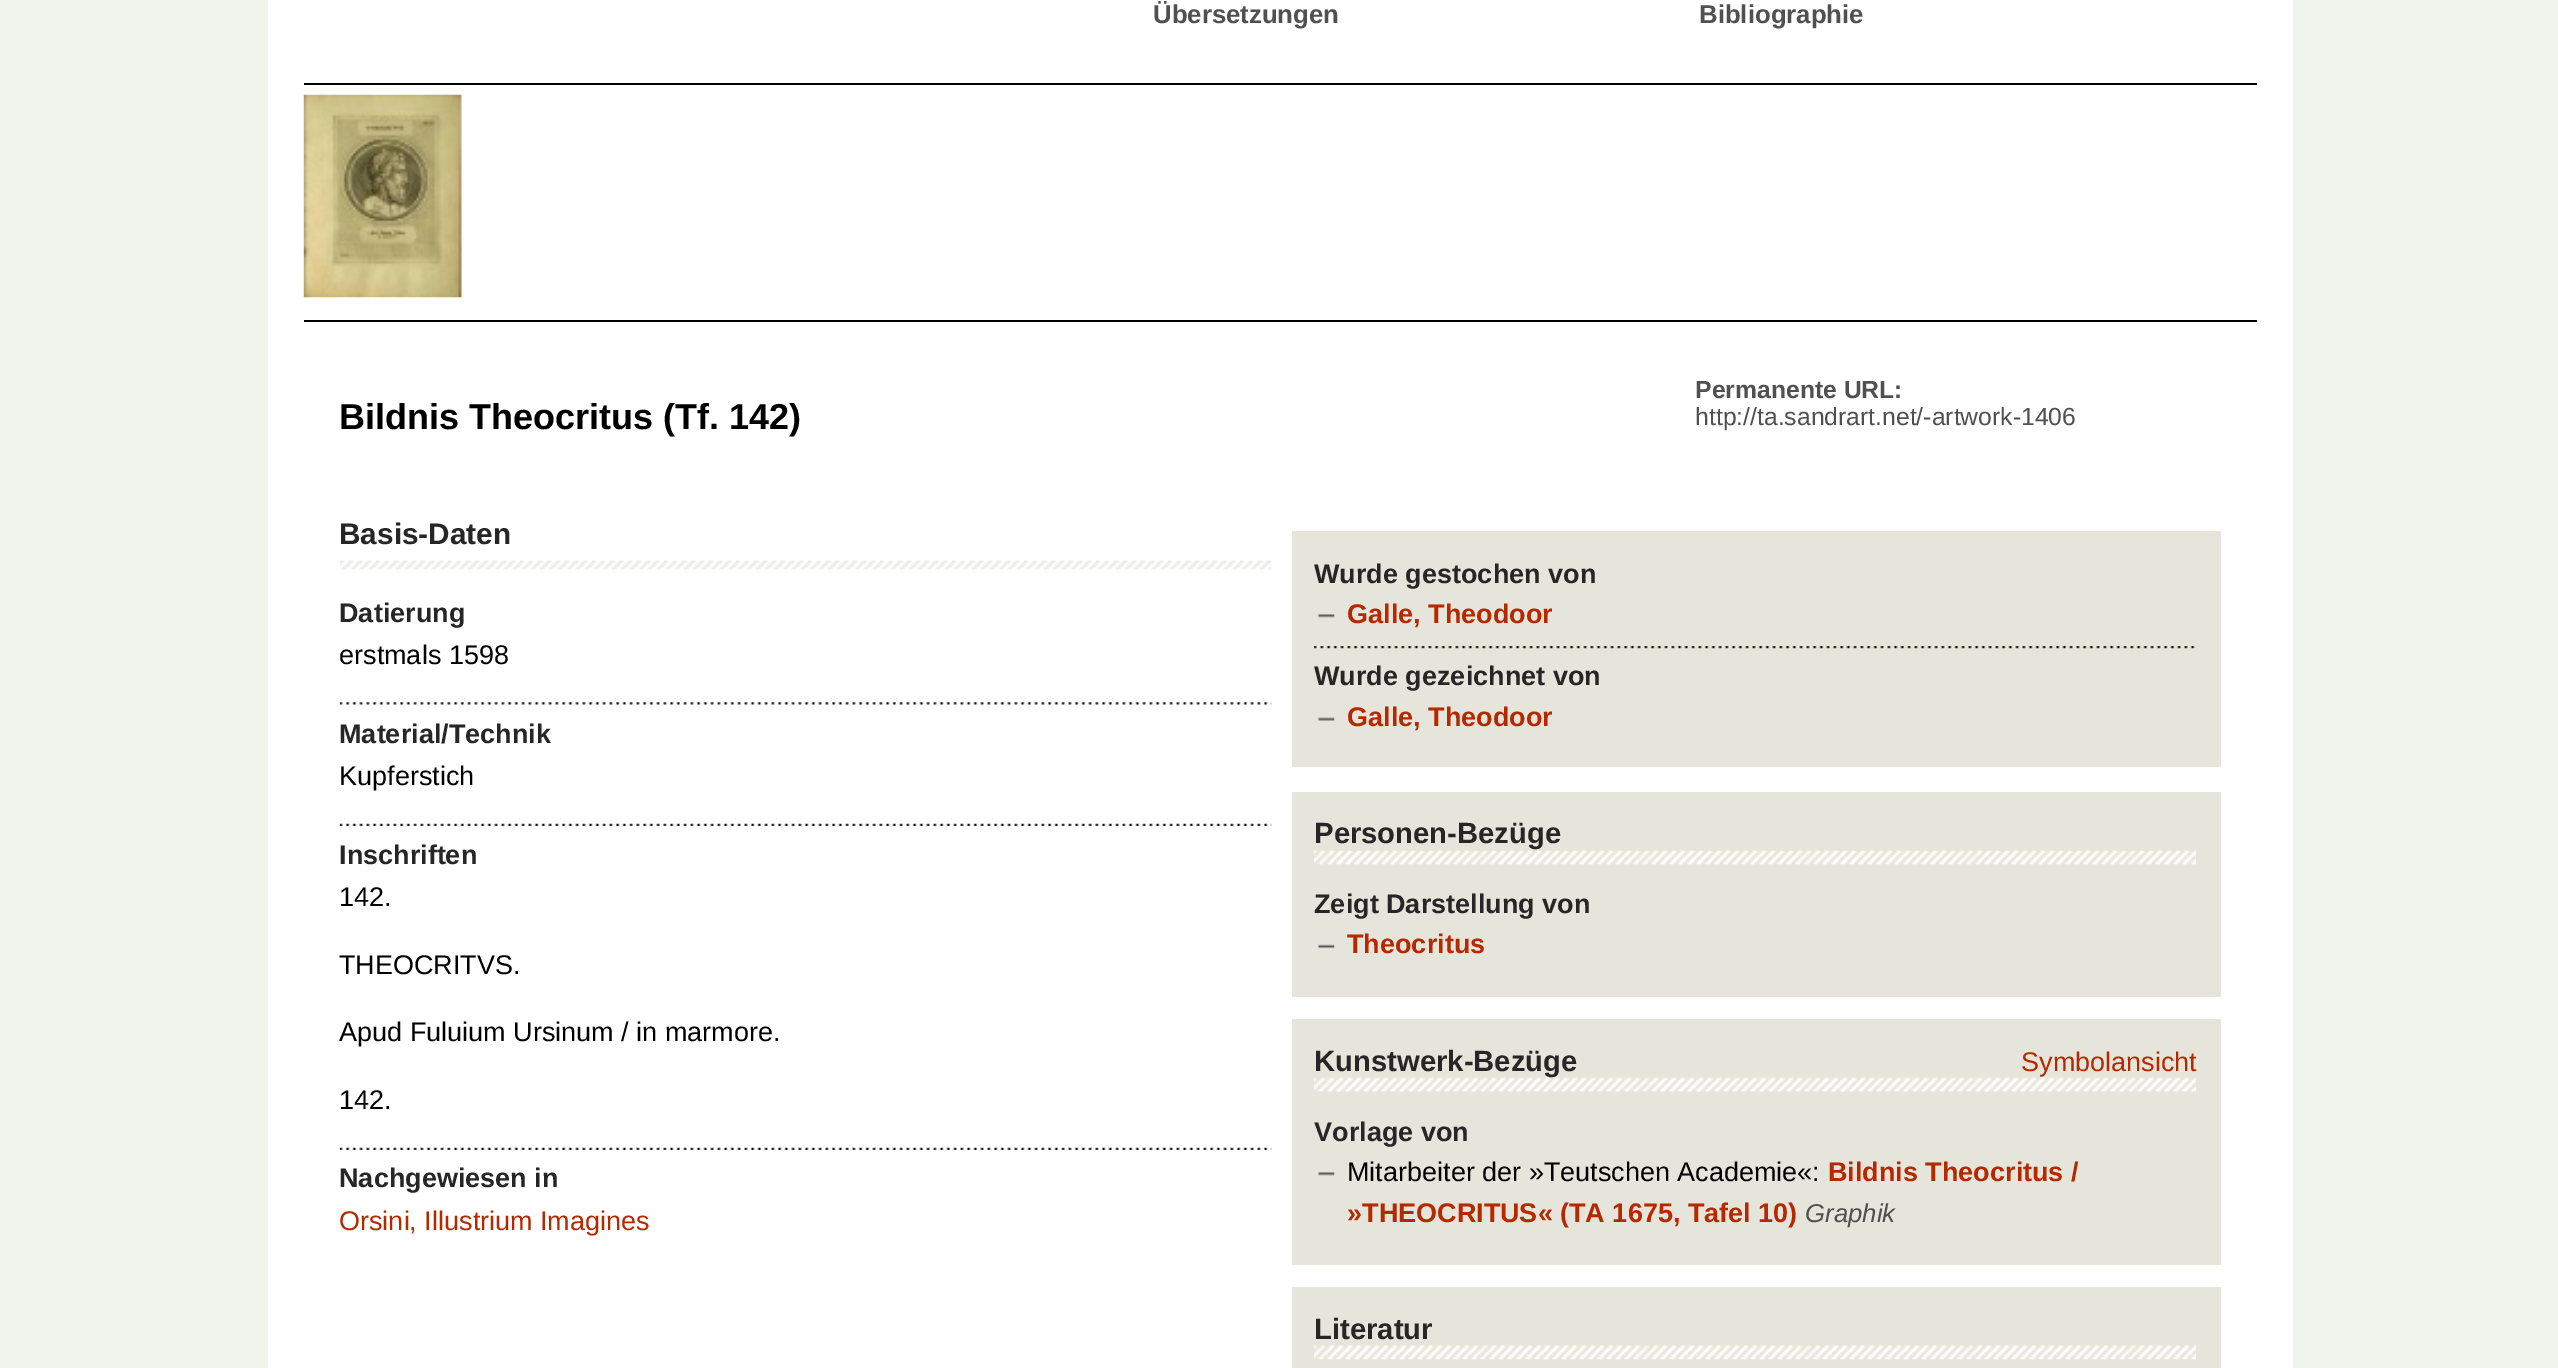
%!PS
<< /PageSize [2558 1368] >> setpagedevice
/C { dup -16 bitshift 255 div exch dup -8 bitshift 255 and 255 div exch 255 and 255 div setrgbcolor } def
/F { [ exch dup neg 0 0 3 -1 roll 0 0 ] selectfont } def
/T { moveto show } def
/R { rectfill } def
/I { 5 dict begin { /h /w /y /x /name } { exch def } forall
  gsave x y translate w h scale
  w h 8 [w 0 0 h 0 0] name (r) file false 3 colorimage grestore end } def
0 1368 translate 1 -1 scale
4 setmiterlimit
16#F1F3ED C
0 0 2558 1368 R
16#FFFFFF C
268 0 2025 1368 R
16#000000 C
304 83 1953 2 R
/LiberationSans-Bold 25.75 F
16#505050 C
(Übersetzungen) 1153 23 T
(Bibliographie) 1699 23 T
16#000000 C
304 320 1953 2 R
(1.rgb) 303 94 162 204 I
/LiberationSans-Bold 36 F
(Bildnis Theocritus \(Tf. 142\)) 339 429 T
/LiberationSans-Bold 24.75 F
16#505050 C
(Permanente URL:) 1695 398 T
/LiberationSans-Regular 24.75 F
(http://ta.sandrart.net/-artwork-1406) 1695 425 T
(2.rgb) 339 560 933 10 I
/LiberationSans-Bold 29.75 F
16#262626 C
(Basis-Daten) 339 544 T
/LiberationSans-Bold 27 F
(Datierung) 339 622 T
/LiberationSans-Regular 27 F
16#000000 C
(erstmals 1598) 339 664 T
(3.rgb) 339 702 933 3 I
/LiberationSans-Bold 27 F
16#262626 C
(Material/Technik) 339 743 T
/LiberationSans-Regular 27 F
16#000000 C
(Kupferstich) 339 785 T
(4.rgb) 339 823 933 3 I
/LiberationSans-Bold 27 F
16#262626 C
(Inschriften) 339 864 T
/LiberationSans-Regular 27 F
16#000000 C
(142.) 339 906 T
(THEOCRITVS.) 339 974 T
(Apud Fuluium Ursinum / in marmore.) 339 1041 T
(142.) 339 1109 T
(4.rgb) 339 1147 933 3 I
/LiberationSans-Bold 27 F
16#262626 C
(Nachgewiesen in) 339 1187 T
/LiberationSans-Regular 27 F
16#B52900 C
(Orsini, Illustrium Imagines) 339 1230 T
16#E6E5DB C
1292 531 929 236 R
/LiberationSans-Bold 27 F
16#262626 C
(Wurde gestochen von) 1314 583 T
(5.rgb) 1318 614 17 4 I
16#B52900 C
(Galle, Theodoor) 1347 623 T
(6.rgb) 1314 646 881 3 I
16#262626 C
(Wurde gezeichnet von) 1314 685 T
(7.rgb) 1318 717 17 4 I
16#B52900 C
(Galle, Theodoor) 1347 726 T
16#E6E5DB C
1292 792 929 205 R
(8.rgb) 1314 850 882 15 I
/LiberationSans-Bold 29.25 F
16#262626 C
(Personen-Bezüge) 1314 843 T
/LiberationSans-Bold 27 F
(Zeigt Darstellung von) 1314 913 T
(9.rgb) 1318 944 17 5 I
16#B52900 C
(Theocritus) 1347 953 T
16#E6E5DB C
1292 1019 929 246 R
(10.rgb) 1314 1077 882 15 I
/LiberationSans-Bold 29.25 F
16#262626 C
(Kunstwerk-Bezüge) 1314 1071 T
/LiberationSans-Regular 27 F
16#B52900 C
(Symbolansicht) 2021 1071 T
/LiberationSans-Bold 27 F
16#262626 C
(Vorlage von) 1314 1141 T
(5.rgb) 1318 1172 17 4 I
/LiberationSans-Regular 27 F
16#000000 C
(Mitarbeiter der »Teutschen Academie«:) 1347 1181 T
/LiberationSans-Bold 27 F
16#B52900 C
(Bildnis Theocritus /) 1828 1181 T
(»THEOCRITUS« \(TA 1675, Tafel 10\)) 1347 1222 T
/LiberationSans-Italic 25.75 F
16#505050 C
(Graphik) 1805 1222 T
16#E6E5DB C
1292 1287 929 81 R
(11.rgb) 1314 1345 882 15 I
/LiberationSans-Bold 29.25 F
16#262626 C
(Literatur) 1314 1339 T
showpage
